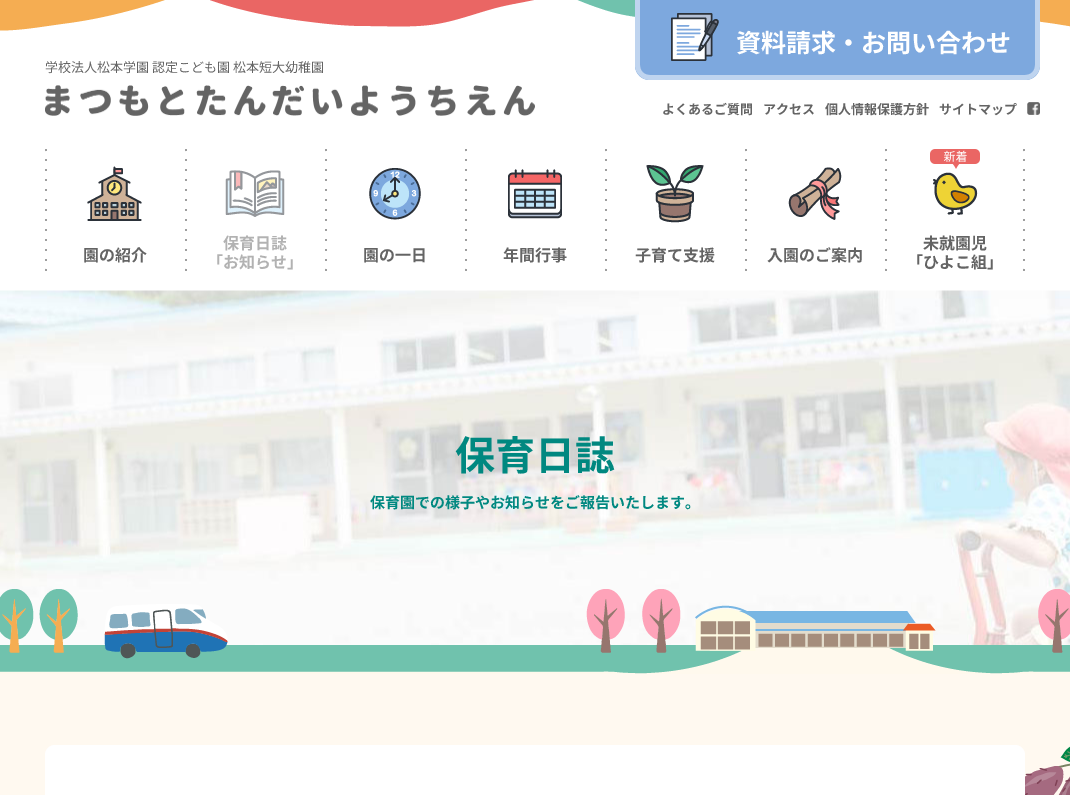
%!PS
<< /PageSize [1070 795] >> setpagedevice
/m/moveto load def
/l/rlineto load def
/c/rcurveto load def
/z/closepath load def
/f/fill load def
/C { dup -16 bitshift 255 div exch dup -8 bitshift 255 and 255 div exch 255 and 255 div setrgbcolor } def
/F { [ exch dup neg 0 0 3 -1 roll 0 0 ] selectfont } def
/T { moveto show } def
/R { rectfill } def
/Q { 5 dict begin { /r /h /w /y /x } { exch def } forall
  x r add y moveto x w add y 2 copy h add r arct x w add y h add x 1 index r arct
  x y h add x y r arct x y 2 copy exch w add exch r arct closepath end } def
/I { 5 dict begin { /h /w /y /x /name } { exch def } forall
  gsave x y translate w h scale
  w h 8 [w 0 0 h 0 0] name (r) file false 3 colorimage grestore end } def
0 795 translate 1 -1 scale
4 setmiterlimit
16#FFFFFF C
0 0 1070 795 R
(1.rgb) 0 0 1070 31 I
16#7DA8DE C
635 0 m 405 0 l 0 65 l 0 8.5 -6.5 15 -15 15 c -375 0 l -8.5 0 -15 -6.5 -15 -15 c z f
(2.rgb) 671 13 48 48 I
16#BFD4EF C
635 0 m 405 0 l 0 65 l 0 8 -7 15 -15 15 c -375 0 l -8 0 -15 -7 -15 -15 c z 640 0 m 395 0 l 0 65 l 0 6 -4 10 -10 10 c -375 0 l -6 0 -10 -4 -10 -10 c z eofill
/NotoSansJP-Bold 25 F
16#FFFFFF C
(資料請求・お問い合わせ) 736 52 T
/NotoSansJP-Regular 13 F
16#646464 C
(学校法人松本学園 認定こども園 松本短大幼稚園) 45 72 T
(3.rgb) 45 85 490 31 I
/NotoSansJP-Bold 13 F
(よくあるご質問) 662 114 T
(アクセス) 763 114 T
(個人情報保護方針) 825 114 T
(サイトマップ) 939 114 T
(4.rgb) 1027 102 13 13 I
(5.rgb) 1023 149 2 122 I
(5.rgb) 45 149 2 122 I
(6.rgb) 87 166 55 55 I
/NotoSansJP-Bold 16 F
(園の紹介) 83 261 T
(5.rgb) 185 149 2 122 I
(7.rgb) 225 170 60 47 I
16#B2B2B2 C
(保育日誌) 223 249 T
(「お知らせ」) 207 268 T
(5.rgb) 325 149 2 122 I
(8.rgb) 369 168 52 52 I
16#646464 C
(園の一日) 363 261 T
(5.rgb) 465 149 2 122 I
(9.rgb) 508 169 54 50 I
(年間行事) 503 261 T
(5.rgb) 605 149 2 122 I
(10.rgb) 646 165 58 58 I
(子育て支援) 635 261 T
(5.rgb) 745 149 2 122 I
(11.rgb) 788 167 54 53 I
(入園のご案内) 767 261 T
(5.rgb) 885 149 2 122 I
(12.rgb) 930 149 50 20 I
(13.rgb) 933 172 45 43 I
(未就園児) 923 249 T
(「ひよこ組」) 907 268 T
(14.rgb) 0 290 1070 355 I
/NotoSansJP-Bold 40 F
16#008880 C
(保育日誌) 455 470 T
/NotoSansJP-Bold 15 F
(保育園での様子やお知らせをご報告いたします。) 370 508 T
16#FFF9F0 C
0 674 1070 121 R
(15.rgb) 0 589 1070 85 I
(16.rgb) 1025 746 45 49 I
16#FFFFFF C
45 745 980 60 10 Q f
showpage
